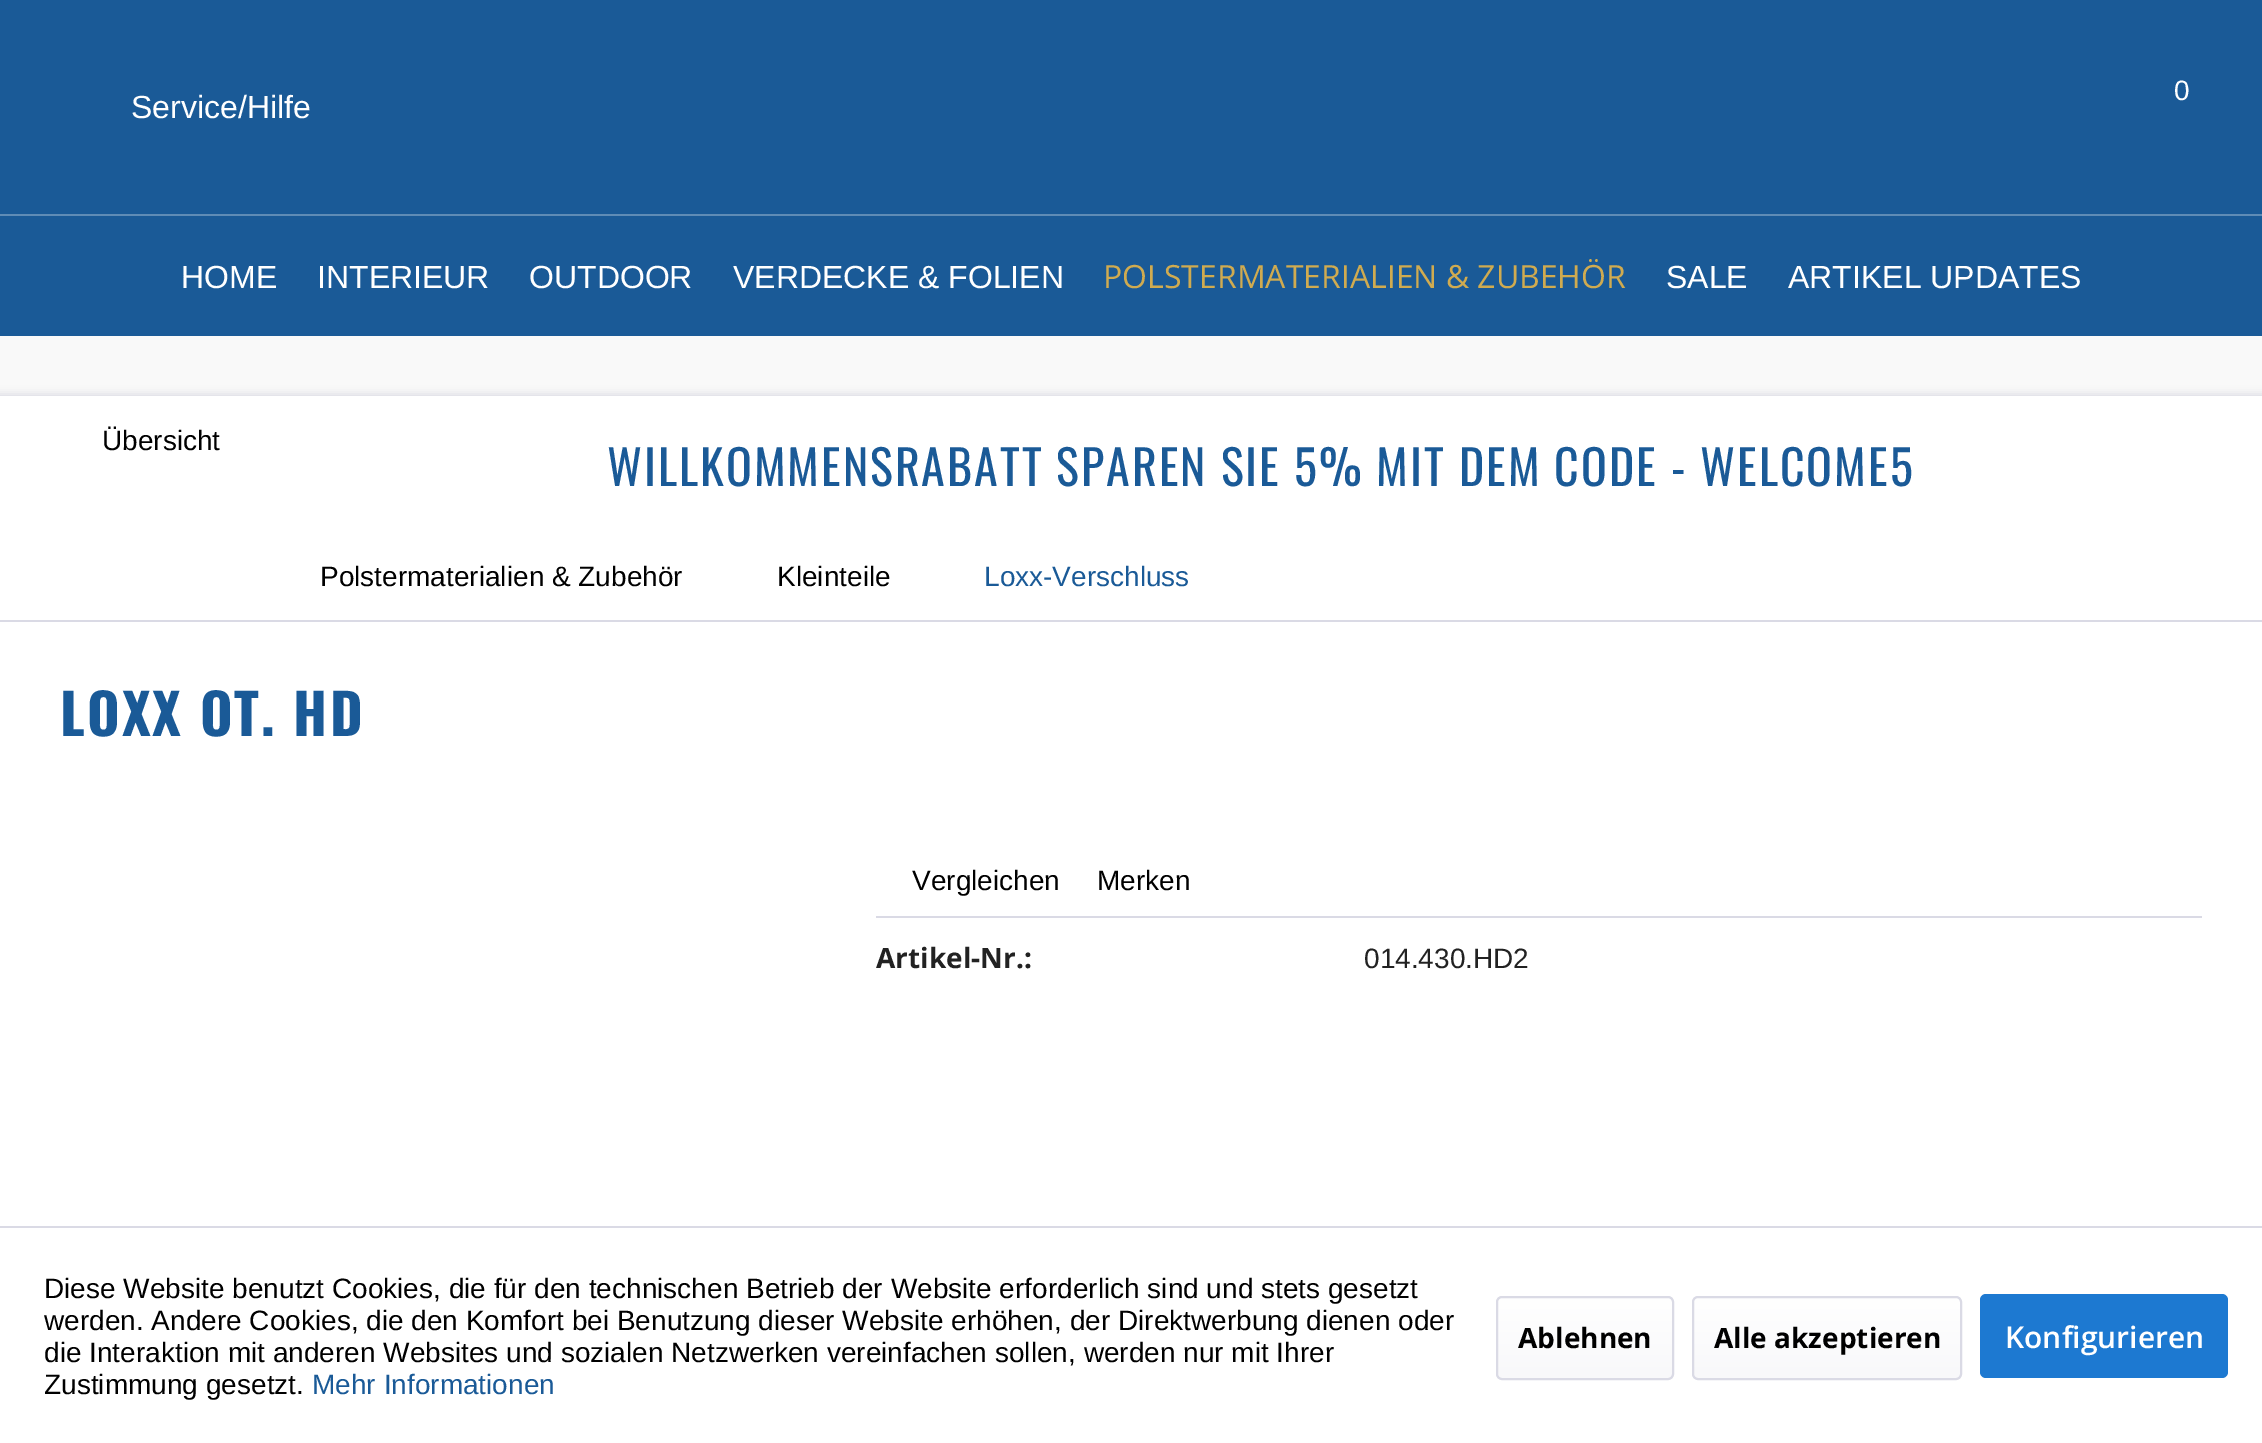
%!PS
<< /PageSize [2262 1443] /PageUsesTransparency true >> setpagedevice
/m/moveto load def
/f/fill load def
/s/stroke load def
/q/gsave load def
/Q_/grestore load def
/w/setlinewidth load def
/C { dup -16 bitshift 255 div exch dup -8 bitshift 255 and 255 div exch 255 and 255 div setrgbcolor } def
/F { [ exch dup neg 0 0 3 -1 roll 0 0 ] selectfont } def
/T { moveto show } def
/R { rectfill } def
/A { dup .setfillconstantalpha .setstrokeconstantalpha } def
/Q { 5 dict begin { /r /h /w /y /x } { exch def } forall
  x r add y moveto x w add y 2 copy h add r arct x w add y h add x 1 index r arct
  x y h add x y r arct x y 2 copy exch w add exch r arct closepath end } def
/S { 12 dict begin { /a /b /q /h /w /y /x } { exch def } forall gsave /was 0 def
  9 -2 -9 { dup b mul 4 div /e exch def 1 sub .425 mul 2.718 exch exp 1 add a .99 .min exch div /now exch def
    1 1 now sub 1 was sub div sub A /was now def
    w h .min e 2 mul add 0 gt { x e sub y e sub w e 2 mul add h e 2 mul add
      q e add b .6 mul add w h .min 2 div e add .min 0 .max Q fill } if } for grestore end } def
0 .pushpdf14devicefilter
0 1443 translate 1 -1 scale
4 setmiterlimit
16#F9F9F9 C
0 0 2262 1443 R
16#1A5A97 C
0 0 2262 214 R
/LiberationSans-Regular 28 F
16#FFFFFF C
(0) 2174 100 T
/LiberationSans-Regular 32 F
(Service/Hilfe) 131 118 T
16#1A5A97 C
0 216 2262 120 R
16#5F8CB6 C
0 214 2262 2 R
16#FFFFFF C
(HOME) 181 288 T
(INTERIEUR) 317 288 T
(OUTDOOR) 529 288 T
(VERDECKE & FOLIEN) 733 288 T
/OpenSans-Regular 32 F
16#D0AB50 C
(POLSTERMATERIALIEN & ZUBEHÖR) 1103 288 T
/LiberationSans-Regular 32 F
16#FFFFFF C
(SALE) 1666 288 T
(ARTIKEL UPDATES) 1788 288 T
16#DADAE5 C
-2 394 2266 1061 0 4 1 S
16#FFFFFF C
0 396 2262 1047 R
16#DADAE5 C
0 620 2262 2 R
/LiberationSans-Regular 28 F
16#000000 C
(Übersicht) 102 450 T
/Oswald-Regular 48 F
16#1A5A97 C
607 486 m 2 0 (WILLKOMMENSRABATT SPAREN SIE 5% MIT DEM CODE - WELCOME5) ashow
/LiberationSans-Regular 28 F
16#000000 C
(Polstermaterialien & Zubehör) 320 586 T
(Kleinteile) 777 586 T
16#1A5A97 C
(Loxx-Verschluss) 984 586 T
/Oswald-Bold 56 F
60 736 m 2 0 (LOXX OT. HD) ashow
16#DADAE5 C
876 916 1326 2 R
/LiberationSans-Regular 28 F
16#000000 C
(Vergleichen) 912 890 T
(Merken) 1097 890 T
/OpenSans-Bold 28 F
16#222222 C
(Artikel-Nr.:) 876 968 T
/LiberationSans-Regular 28 F
(014.430.HD2) 1364 968 T
16#DADAE5 C
0 1226 2262 2 R
16#000000 C
(Diese Website benutzt Cookies, die für den technischen Betrieb der Website erforderlich sind und stets gesetzt) 44 1298 T
(werden. Andere Cookies, die den Komfort bei Benutzung dieser Website erhöhen, der Direktwerbung dienen oder) 44 1330 T
(die Interaktion mit anderen Websites und sozialen Netzwerken vereinfachen sollen, werden nur mit Ihrer) 44 1362 T
(Zustimmung gesetzt.) 44 1394 T
16#1A5A97 C
(Mehr Informationen) 312 1394 T
q 1498 1298 174 80 4 Q clip newpath
<< /ShadingType 2 /ColorSpace /DeviceRGB /Coords [1585 1298 1585 1378] /Extend [true true] /Function << /FunctionType 2 /Domain [0 1] /C0 [1 1 1] /C1 [.973 .973 .98] /N 1 >> >> shfill Q_
16#DADAE5 C
2 w
1497 1297 176 82 5 Q s
/OpenSans-Bold 28 F
16#000000 C
(Ablehnen) 1518 1348 T
q 1694 1298 266 80 4 Q clip newpath
<< /ShadingType 2 /ColorSpace /DeviceRGB /Coords [1827 1298 1827 1378] /Extend [true true] /Function << /FunctionType 2 /Domain [0 1] /C0 [1 1 1] /C1 [.973 .973 .98] /N 1 >> >> shfill Q_
16#DADAE5 C
1693 1297 268 82 5 Q s
16#000000 C
(Alle akzeptieren) 1714 1348 T
16#1D79D1 C
1980 1294 248 84 6 Q f
/OpenSans-SemiBold 30 F
16#FFFFFF C
(Konfigurieren) 2005 1348 T
.poppdf14devicefilter showpage
